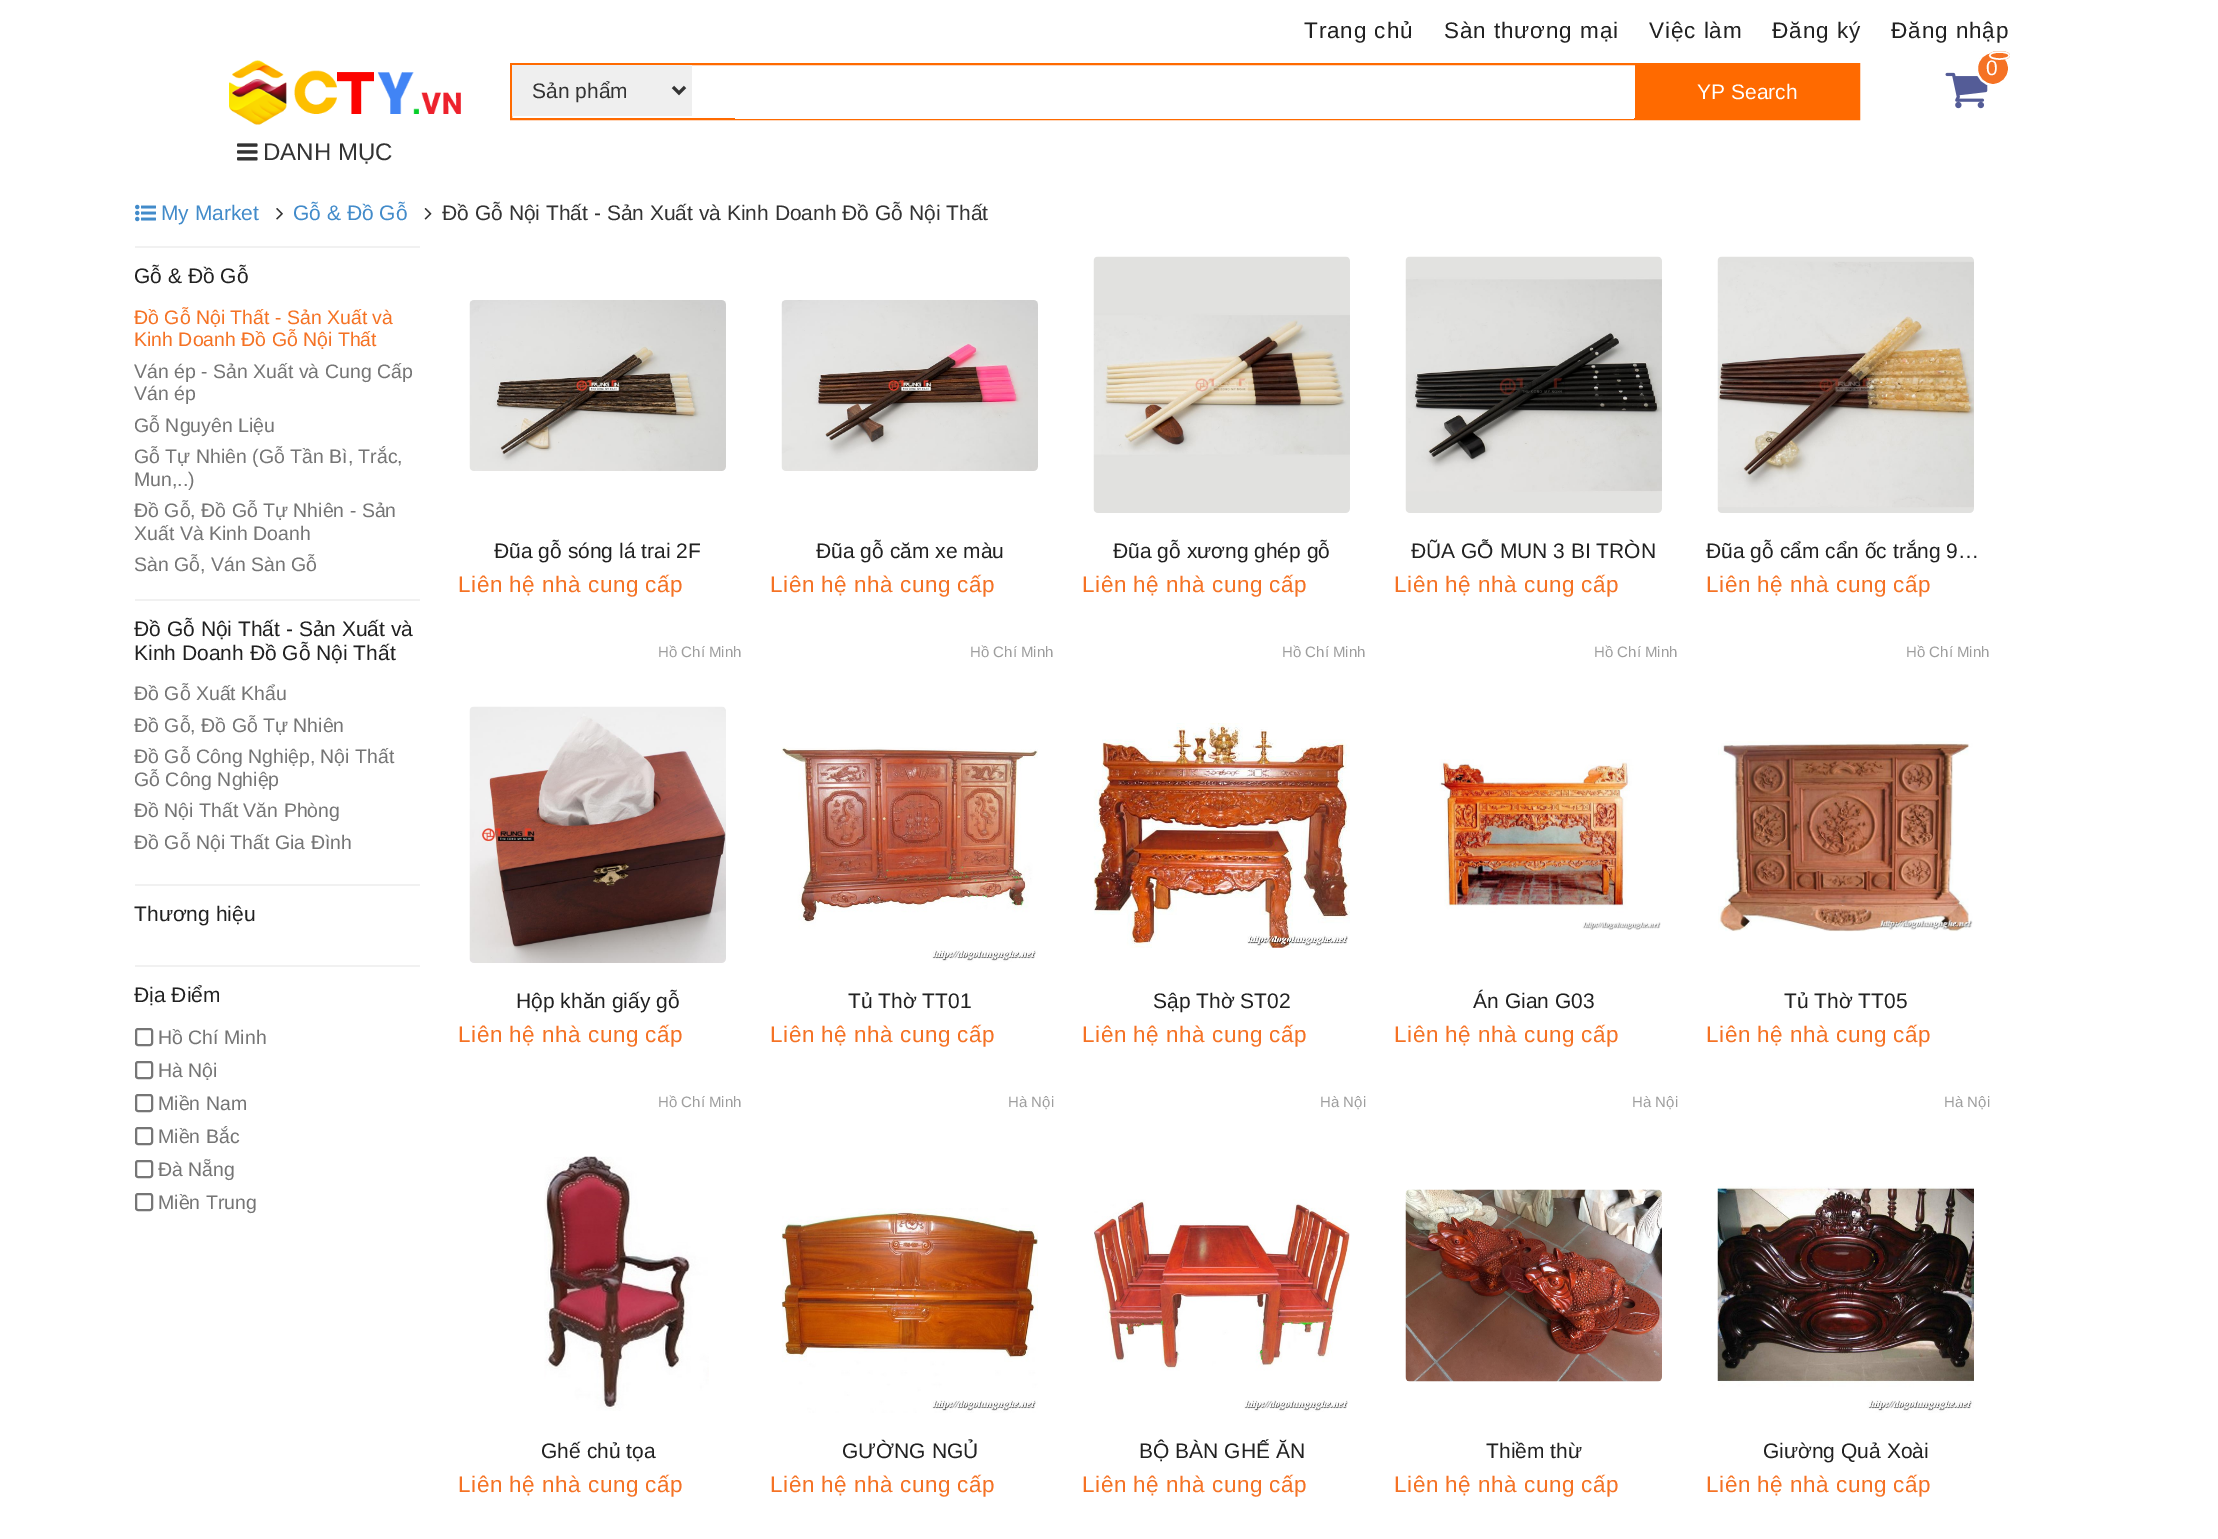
%!PS
<< /PageSize [2218 1539] >> setpagedevice
/m/moveto load def
/l/rlineto load def
/c/rcurveto load def
/z/closepath load def
/f/fill load def
/s/stroke load def
/q/gsave load def
/Q_/grestore load def
/w/setlinewidth load def
/C { dup -16 bitshift 255 div exch dup -8 bitshift 255 and 255 div exch 255 and 255 div setrgbcolor } def
/F { [ exch dup neg 0 0 3 -1 roll 0 0 ] selectfont } def
/T { moveto show } def
/R { rectfill } def
/Q { 5 dict begin { /r /h /w /y /x } { exch def } forall
  x r add y moveto x w add y 2 copy h add r arct x w add y h add x 1 index r arct
  x y h add x y r arct x y 2 copy exch w add exch r arct closepath end } def
/I { 5 dict begin { /h /w /y /x /name } { exch def } forall
  gsave x y translate w h scale
  w h 8 [w 0 0 h 0 0] name (r) file false 3 colorimage grestore end } def
0 1539 translate 1 -1 scale
4 setmiterlimit
16#FFFFFF C
0 0 2218 1539 R
/LiberationSans-Regular 22.5 F
16#212121 C
1304 38 m .9 0 (Trang chủ) ashow
1444 38 m .9 0 (Sàn thương mại) ashow
1649 38 m .9 0 (Việc làm) ashow
1772 38 m .9 0 (Đăng ký) ashow
1891 38 m .9 0 (Đăng nhập) ashow
(1.rgb) 229 60 232 65 I
(2.rgb) 1945 72 43 37 I
16#F57224 C
1977 52 32 33 16 Q q f Q_
16#FFFFFF C
2 w
s
16#F57224 C
1999.5 51 m 6 0 10.5 2 10.5 4.5 c 0 2.5 -4.5 4.5 -10.5 4.5 c -6 0 -10.5 -2 -10.5 -4.5 c 0 -2.5 4.5 -4.5 10.5 -4.5 c z f
16#FFFFFF C
1.5 w
1999.5 52 m 13 0 13 7 0 7 c -13 0 -13 -7 0 -7 c z s
/LiberationSans-Regular 21 F
(0) 1986 75 T
16#FF6A00 C
2 w
511 64 1348 55 rectstroke
16#EFEFEF C
512 65 180 51 R
16#333333 C
3 w
673 87 m 6 6 l 6 -6 l s
(Sản phẩm) 532 98 T
16#FF6A00 C
1635 65 223 53 R
16#FFFFFF C
(YP Search) 1697 99 T
735 118 899 1 R
(3.rgb) 237 143 21 18 I
/LiberationSans-Regular 24 F
16#333333 C
(DANH MỤC) 263 160 T
(4.rgb) 135 204 21 18 I
/LiberationSans-Regular 21 F
16#428BCA C
(My Market) 161 220 T
(5.rgb) 276 208 7 12 I
(Gỗ & Đồ Gỗ) 293 220 T
(6.rgb) 424 208 8 12 I
16#333333 C
(Đồ Gỗ Nội Thất - Sản Xuất và Kinh Doanh Đồ Gỗ Nội Thất) 442 220 T
16#F1F1F1 C
135 246 285 2 R
16#212121 C
(Gỗ & Đồ Gỗ) 134 283 T
/LiberationSans-Regular 19.5 F
16#F57224 C
(Đồ Gỗ Nội Thất - Sản Xuất và) 134 324 T
(Kinh Doanh Đồ Gỗ Nội Thất) 134 346 T
16#757575 C
(Ván ép - Sản Xuất và Cung Cấp) 134 378 T
(Ván ép) 134 400 T
(Gỗ Nguyên Liệu) 134 432 T
(Gỗ Tự Nhiên \(Gỗ Tần Bì, Trắc,) 134 463 T
(Mun,..\)) 134 486 T
(Đồ Gỗ, Đồ Gỗ Tự Nhiên - Sản) 134 517 T
(Xuất Và Kinh Doanh) 134 540 T
(Sàn Gỗ, Ván Sàn Gỗ) 134 571 T
16#F1F1F1 C
135 599 285 2 R
/LiberationSans-Regular 21 F
16#212121 C
(Đồ Gỗ Nội Thất - Sản Xuất và) 134 636 T
(Kinh Doanh Đồ Gỗ Nội Thất) 134 660 T
/LiberationSans-Regular 19.5 F
16#757575 C
(Đồ Gỗ Xuất Khẩu) 134 700 T
(Đồ Gỗ, Đồ Gỗ Tự Nhiên) 134 732 T
(Đồ Gỗ Công Nghiệp, Nội Thất) 134 763 T
(Gỗ Công Nghiệp) 134 786 T
(Đồ Nội Thất Văn Phòng) 134 817 T
(Đồ Gỗ Nội Thất Gia Đình) 134 849 T
16#F1F1F1 C
135 884 285 2 R
/LiberationSans-Regular 21 F
16#212121 C
(Thương hiệu) 134 921 T
16#F1F1F1 C
135 965 285 2 R
16#212121 C
(Địa Điểm) 134 1002 T
16#767676 C
2 w
136 1029 16 16 2 Q s
/LiberationSans-Regular 19.5 F
16#757575 C
(Hồ Chí Minh) 158 1044 T
16#767676 C
136 1062 16 16 2 Q s
16#757575 C
(Hà Nội) 158 1077 T
16#767676 C
136 1095 16 16 2 Q s
16#757575 C
(Miền Nam) 158 1110 T
16#767676 C
136 1128 16 16 2 Q s
16#757575 C
(Miền Bắc) 158 1143 T
16#767676 C
136 1161 16 16 2 Q s
16#757575 C
(Đà Nẵng) 158 1176 T
16#767676 C
136 1194 16 16 2 Q s
16#757575 C
(Miền Trung) 158 1209 T
(7.rgb) 469 300 257 171 I
/LiberationSans-Regular 21 F
16#212121 C
(Đũa gỗ sóng lá trai 2F) 494 558 T
/LiberationSans-Regular 22.5 F
16#F57224 C
458 592 m .5 0 (Liên hệ nhà cung cấp) ashow
/LiberationSans-Regular 15 F
16#9E9E9E C
(Hồ Chí Minh) 658 657 T
(8.rgb) 781 300 257 171 I
/LiberationSans-Regular 21 F
16#212121 C
(Đũa gỗ căm xe màu) 816 558 T
/LiberationSans-Regular 22.5 F
16#F57224 C
770 592 m .5 0 (Liên hệ nhà cung cấp) ashow
/LiberationSans-Regular 15 F
16#9E9E9E C
(Hồ Chí Minh) 970 657 T
(9.rgb) 1093 256 257 257 I
/LiberationSans-Regular 21 F
16#212121 C
(Đũa gỗ xương ghép gỗ) 1113 558 T
/LiberationSans-Regular 22.5 F
16#F57224 C
1082 592 m .5 0 (Liên hệ nhà cung cấp) ashow
/LiberationSans-Regular 15 F
16#9E9E9E C
(Hồ Chí Minh) 1282 657 T
(10.rgb) 1405 256 257 257 I
/LiberationSans-Regular 21 F
16#212121 C
(ĐŨA GỖ MUN 3 BI TRÒN) 1411 558 T
/LiberationSans-Regular 22.5 F
16#F57224 C
1394 592 m .5 0 (Liên hệ nhà cung cấp) ashow
/LiberationSans-Regular 15 F
16#9E9E9E C
(Hồ Chí Minh) 1594 657 T
(11.rgb) 1717 256 257 257 I
/LiberationSans-Regular 21 F
16#212121 C
(Đũa gỗ cẩm cẩn ốc trắng 9…) 1706 558 T
/LiberationSans-Regular 22.5 F
16#F57224 C
1706 592 m .5 0 (Liên hệ nhà cung cấp) ashow
/LiberationSans-Regular 15 F
16#9E9E9E C
(Hồ Chí Minh) 1906 657 T
(12.rgb) 469 706 257 257 I
/LiberationSans-Regular 21 F
16#212121 C
(Hộp khăn giấy gỗ) 516 1008 T
/LiberationSans-Regular 22.5 F
16#F57224 C
458 1042 m .5 0 (Liên hệ nhà cung cấp) ashow
/LiberationSans-Regular 15 F
16#9E9E9E C
(Hồ Chí Minh) 658 1107 T
(13.rgb) 781 747 257 215 I
/LiberationSans-Regular 21 F
16#212121 C
(Tủ Thờ TT01) 848 1008 T
/LiberationSans-Regular 22.5 F
16#F57224 C
770 1042 m .5 0 (Liên hệ nhà cung cấp) ashow
/LiberationSans-Regular 15 F
16#9E9E9E C
(Hà Nội) 1008 1107 T
(14.rgb) 1093 723 257 225 I
/LiberationSans-Regular 21 F
16#212121 C
(Sập Thờ ST02) 1153 1008 T
/LiberationSans-Regular 22.5 F
16#F57224 C
1082 1042 m .5 0 (Liên hệ nhà cung cấp) ashow
/LiberationSans-Regular 15 F
16#9E9E9E C
(Hà Nội) 1320 1107 T
(15.rgb) 1439 759 222 171 I
/LiberationSans-Regular 21 F
16#212121 C
(Án Gian G03) 1473 1008 T
/LiberationSans-Regular 22.5 F
16#F57224 C
1394 1042 m .5 0 (Liên hệ nhà cung cấp) ashow
/LiberationSans-Regular 15 F
16#9E9E9E C
(Hà Nội) 1632 1107 T
(16.rgb) 1718 741 255 191 I
/LiberationSans-Regular 21 F
16#212121 C
(Tủ Thờ TT05) 1784 1008 T
/LiberationSans-Regular 22.5 F
16#F57224 C
1706 1042 m .5 0 (Liên hệ nhà cung cấp) ashow
/LiberationSans-Regular 15 F
16#9E9E9E C
(Hà Nội) 1944 1107 T
(17.rgb) 544 1156 165 255 I
/LiberationSans-Regular 21 F
16#212121 C
(Ghế chủ tọa) 541 1458 T
/LiberationSans-Regular 22.5 F
16#F57224 C
458 1492 m .5 0 (Liên hệ nhà cung cấp) ashow
(18.rgb) 781 1208 257 205 I
/LiberationSans-Regular 21 F
16#212121 C
(GƯỜNG NGỦ) 842 1458 T
/LiberationSans-Regular 22.5 F
16#F57224 C
770 1492 m .5 0 (Liên hệ nhà cung cấp) ashow
(19.rgb) 1094 1199 256 213 I
/LiberationSans-Regular 21 F
16#212121 C
(BỘ BÀN GHẾ ĂN) 1139 1458 T
/LiberationSans-Regular 22.5 F
16#F57224 C
1082 1492 m .5 0 (Liên hệ nhà cung cấp) ashow
(20.rgb) 1405 1189 257 193 I
/LiberationSans-Regular 21 F
16#212121 C
(Thiềm thừ) 1486 1458 T
/LiberationSans-Regular 22.5 F
16#F57224 C
1394 1492 m .5 0 (Liên hệ nhà cung cấp) ashow
(21.rgb) 1717 1186 257 227 I
/LiberationSans-Regular 21 F
16#212121 C
(Giường Quả Xoài) 1763 1458 T
/LiberationSans-Regular 22.5 F
16#F57224 C
1706 1492 m .5 0 (Liên hệ nhà cung cấp) ashow
showpage
